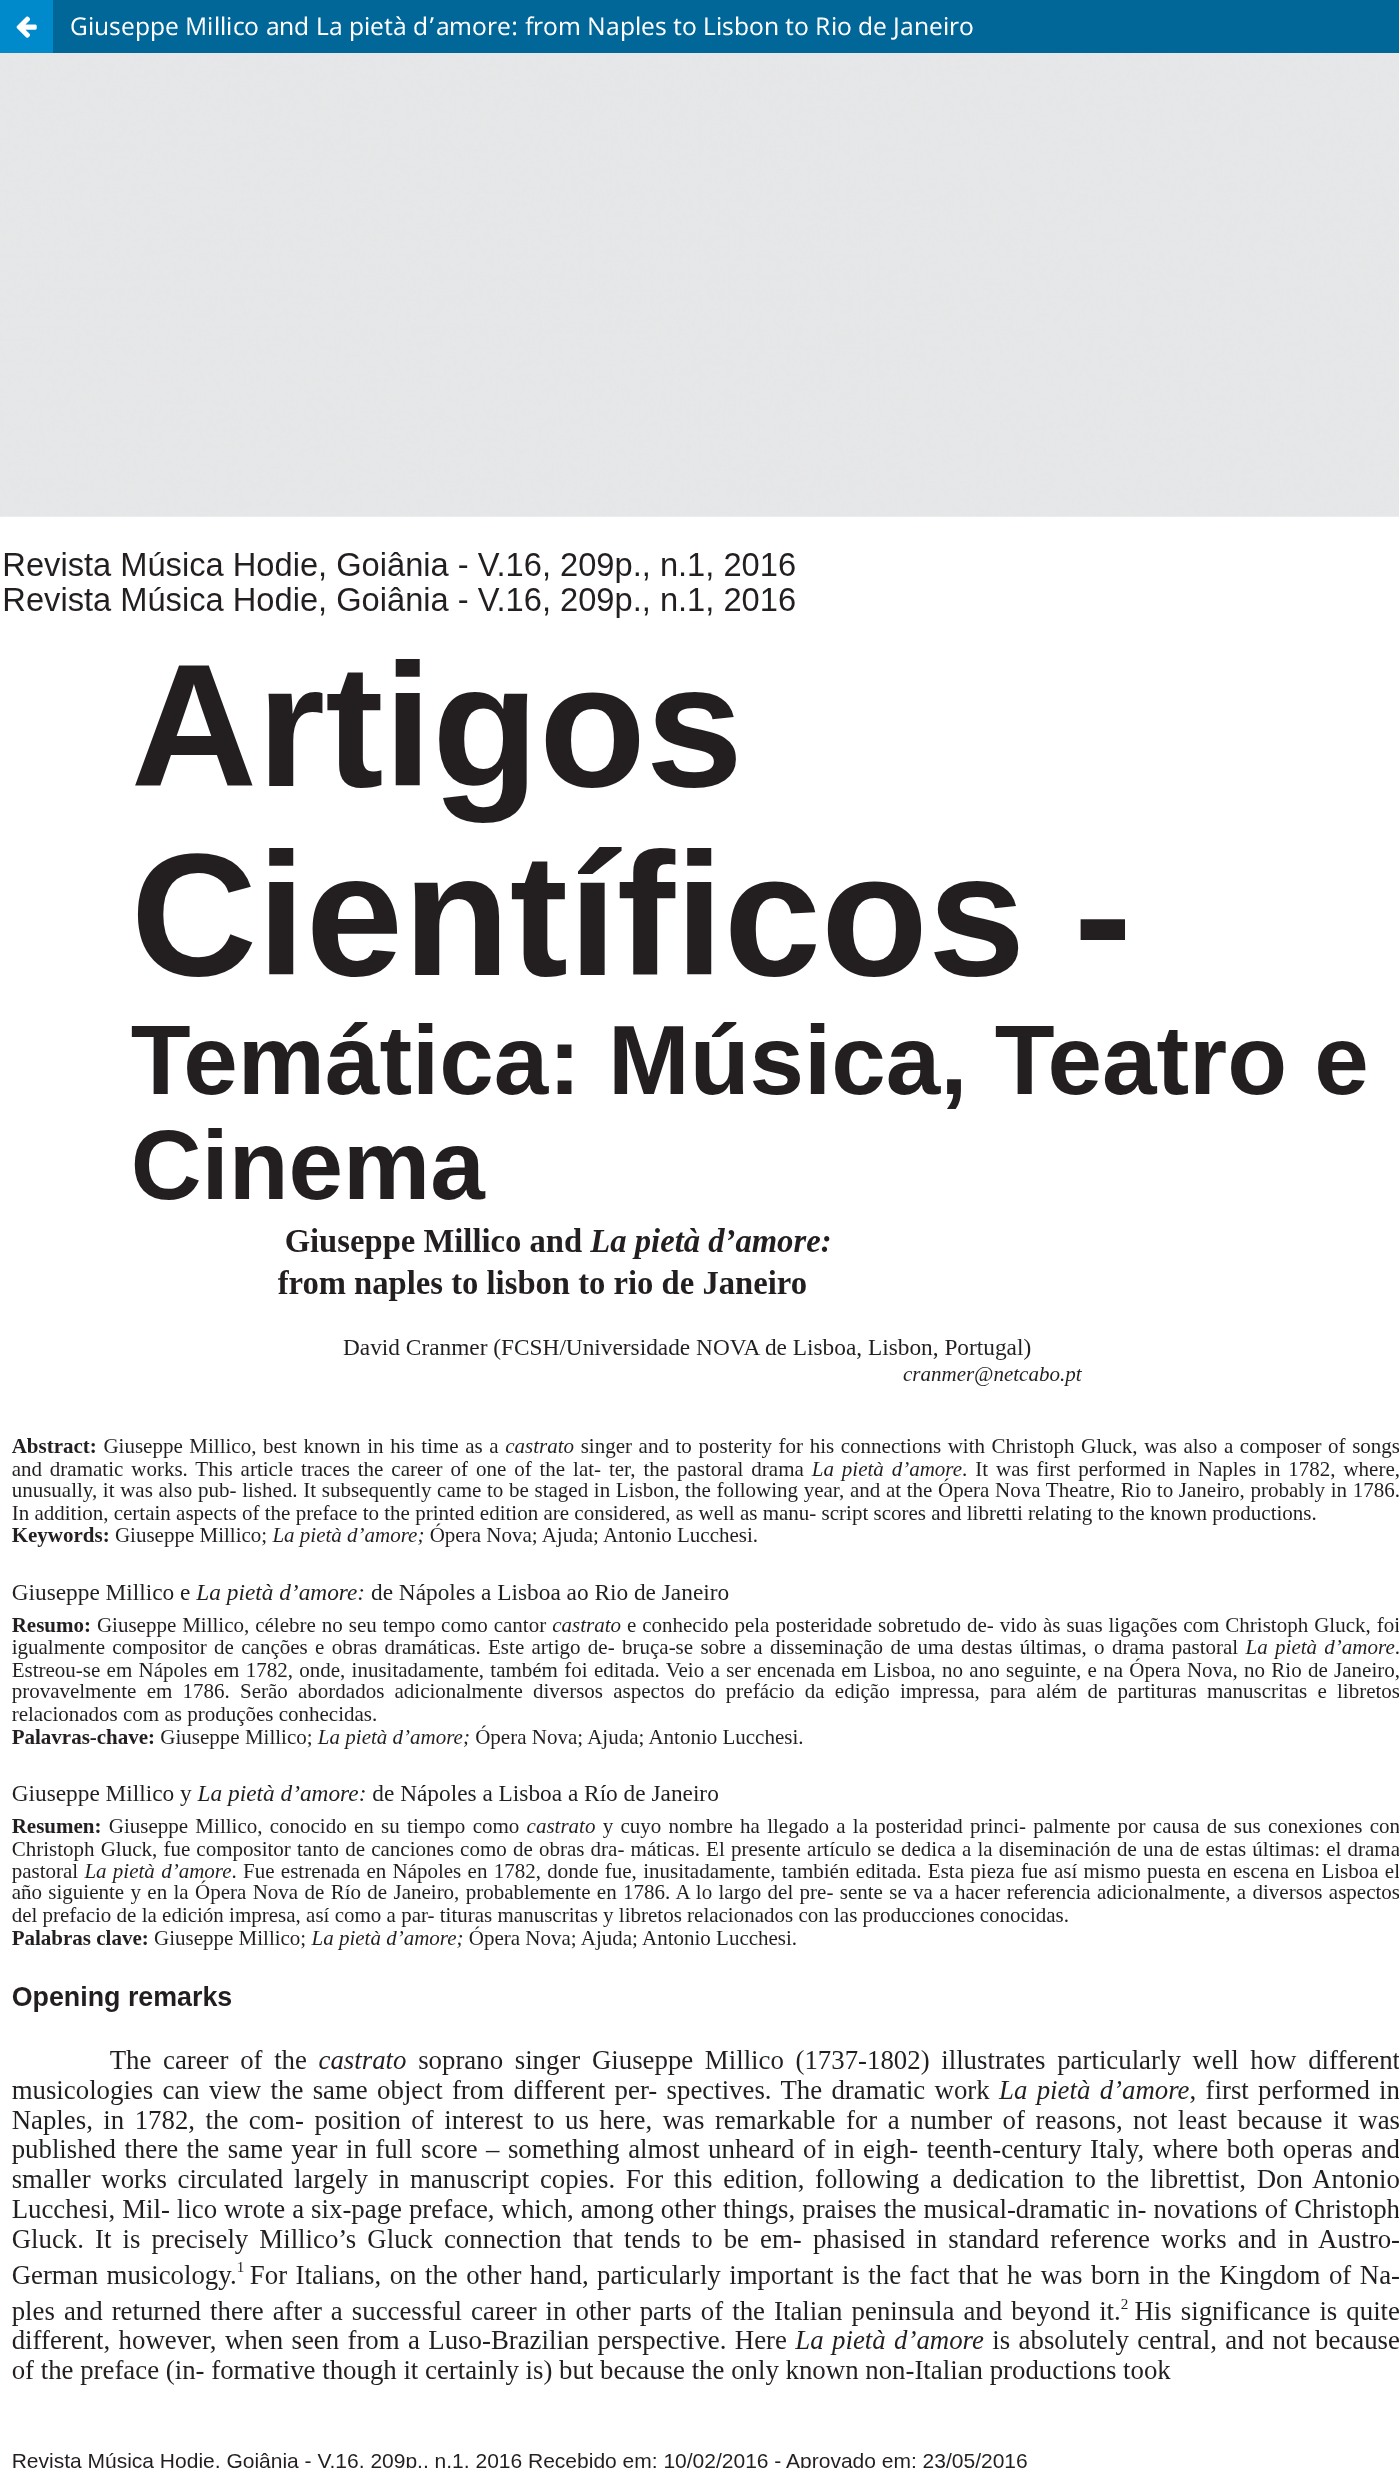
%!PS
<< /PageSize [1399 2468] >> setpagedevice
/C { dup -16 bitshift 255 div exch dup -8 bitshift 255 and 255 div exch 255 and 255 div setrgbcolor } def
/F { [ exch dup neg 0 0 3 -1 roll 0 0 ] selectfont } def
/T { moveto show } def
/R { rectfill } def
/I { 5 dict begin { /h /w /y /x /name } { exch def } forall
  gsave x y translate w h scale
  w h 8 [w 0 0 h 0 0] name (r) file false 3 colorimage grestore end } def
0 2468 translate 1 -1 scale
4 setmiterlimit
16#FFFFFF C
0 0 1399 2468 R
16#006798 C
53 0 1346 53 R
16#008ACB C
0 0 53 53 R
(1.rgb) 16 16 21 22 I
/NotoSans-Regular 24.5 F
16#FFFFFF C
(Giuseppe Millico and La pietà d’amore: from Naples to Lisbon to Rio de Janeiro) 70 35 T
(2.rgb) 0 53 1399 2415 I
showpage
